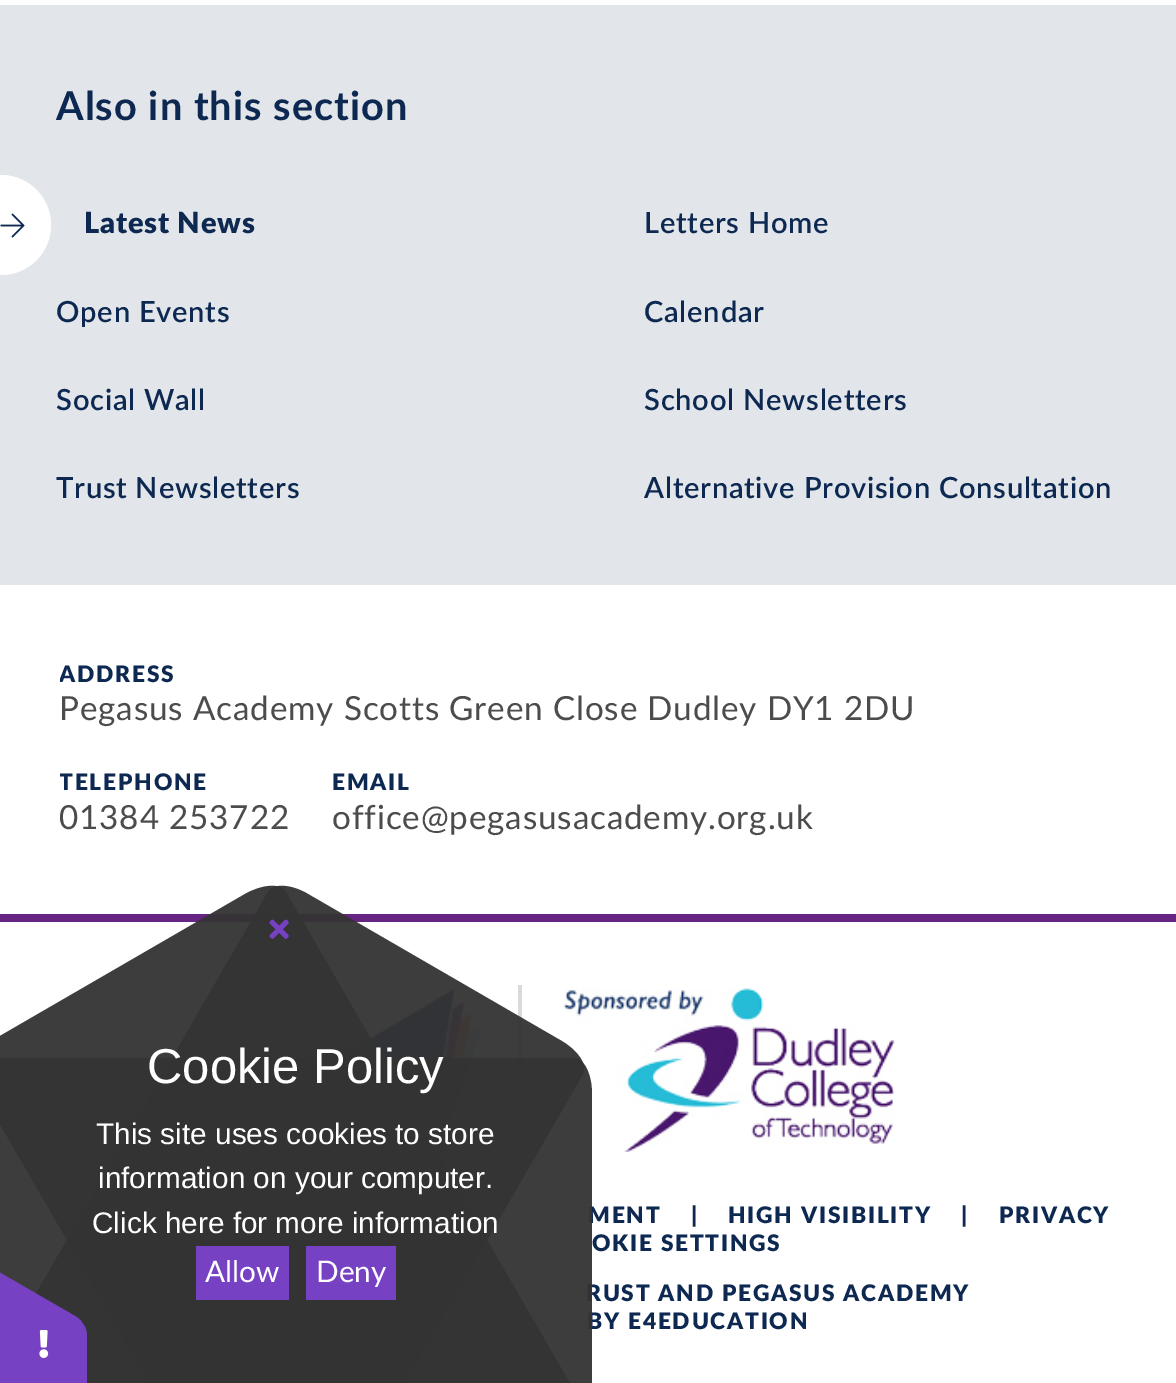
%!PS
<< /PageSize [1176 1383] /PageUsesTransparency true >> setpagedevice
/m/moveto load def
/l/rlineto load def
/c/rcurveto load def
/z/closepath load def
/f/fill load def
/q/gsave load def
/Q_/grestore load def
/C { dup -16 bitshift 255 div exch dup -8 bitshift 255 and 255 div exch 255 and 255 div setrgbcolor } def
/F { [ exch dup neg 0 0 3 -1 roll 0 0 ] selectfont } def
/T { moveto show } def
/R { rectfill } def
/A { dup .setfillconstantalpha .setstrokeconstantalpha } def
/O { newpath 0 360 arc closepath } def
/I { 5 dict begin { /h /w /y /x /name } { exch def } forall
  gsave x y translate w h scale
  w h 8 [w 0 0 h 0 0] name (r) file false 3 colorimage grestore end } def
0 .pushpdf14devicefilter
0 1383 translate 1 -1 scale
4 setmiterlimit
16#FFFFFF C
0 0 1176 1383 R
16#E2E5E9 C
0 5 1176 580 R
/Lato-Bold 39.75 F
16#0D2952 C
56 120 m 1 0 (Also in this section) ashow
16#FFFFFF C
1 225 50 O f
(1.rgb) 0 213 25 25 I
/Lato-Black 29.1 F
16#0D2952 C
84 233 m .75 0 (Latest News) ashow
/Lato-SemiBold 29.1 F
644 233 m .75 0 (Letters Home) ashow
56 322 m .75 0 (Open Events) ashow
644 322 m .75 0 (Calendar) ashow
56 410 m .75 0 (Social Wall) ashow
644 410 m .75 0 (School Newsletters) ashow
56 498 m .75 0 (Trust Newsletters) ashow
644 498 m .75 0 (Alternative Provision Consultation) ashow
q
60 641 1057 217 rectclip
/Lato-Black 22.75 F
59 682 m 1.75 0 (ADDRESS) ashow
Q_
/Lato-Regular 33.25 F
16#4C4C4C C
59 720 m .85 0 (Pegasus Academy Scotts Green Close Dudley DY1 2DU) ashow
q
60 641 1057 217 rectclip
/Lato-Black 22.75 F
16#0D2952 C
59 790 m 1.75 0 (TELEPHONE) ashow
/Lato-Regular 33.25 F
16#4C4C4C C
59 829 m .85 0 (01384 253722) ashow
Q_
/Lato-Black 22.75 F
16#0D2952 C
332 790 m 1.75 0 (EMAIL) ashow
/Lato-Regular 33.25 F
16#4C4C4C C
332 829 m .85 0 (office@pegasusacademy.org.uk) ashow
16#662483 C
0 914 1176 8 R
16#D9D9D9 C
518 985 4 167 R
(2.rgb) 283 988 200 164 I
(3.rgb) 563 988 332 164 I
/Lato-Black 22.75 F
16#0D2952 C
588 1223 m 1.75 0 (MENT) ashow
691 1223 m 1.75 0 (|) ashow
728 1223 m 1.75 0 (HIGH VISIBILITY) ashow
961 1223 m 1.75 0 (|) ashow
999 1223 m 1.75 0 (PRIVACY) ashow
592 1251 m 1.75 0 (OKIE SETTINGS) ashow
586 1301 m 1.75 0 (RUST AND PEGASUS ACADEMY) ashow
587 1329 m 1.75 0 (BY E4EDUCATION) ashow
0.95 A
16#333333 C
592 1094 m 0 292 l 0 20 -8 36 -18 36 c -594 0 l -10 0 -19 -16 -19 -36 c 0 -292 l 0 -20 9 -36 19 -36 c 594 0 l 10 0 18 16 18 36 c z f
560 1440 m -252 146 l -17 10 -35 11 -40 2 c -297 -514 l -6 -9 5 -24 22 -34 c 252 -146 l 18 -10 36 -11 41 -2 c 297 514 l 5 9 -5 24 -23 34 c z f
308 894 m 252 146 l 18 10 28 25 23 34 c -297 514 l -5 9 -23 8 -41 -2 c -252 -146 l -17 -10 -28 -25 -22 -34 c 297 -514 l 5 -9 23 -8 40 2 c z f
1 A
(4.rgb) 269 919 20 20 I
/LiberationSans-Regular 49 F
16#FFFFFF C
(Cookie Policy) 147 1083 T
/LiberationSans-Regular 29.75 F
(This site uses cookies to store) 96 1144 T
(information on your computer.) 98 1188 T
(Click here for more information) 92 1233 T
16#7741C4 C
196 1246 93 54 R
/Lato-Regular 29.75 F
16#FFFFFF C
(Allow) 205 1282 T
16#7741C4 C
306 1246 90 54 R
16#FFFFFF C
(Deny) 316 1282 T
16#7741C4 C
87 1337 m 0 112 l 0 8 -3 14 -7 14 c -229 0 l -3 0 -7 -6 -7 -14 c 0 -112 l 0 -8 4 -14 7 -14 c 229 0 l 4 0 7 6 7 14 c z f
-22 1260 m 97 56 l 7 4 10 10 8 13 c -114 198 l -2 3 -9 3 -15 -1 c -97 -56 l -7 -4 -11 -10 -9 -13 c 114 -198 l 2 -3 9 -3 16 1 c z f
(5.rgb) 39 1330 10 28 I
.poppdf14devicefilter showpage
